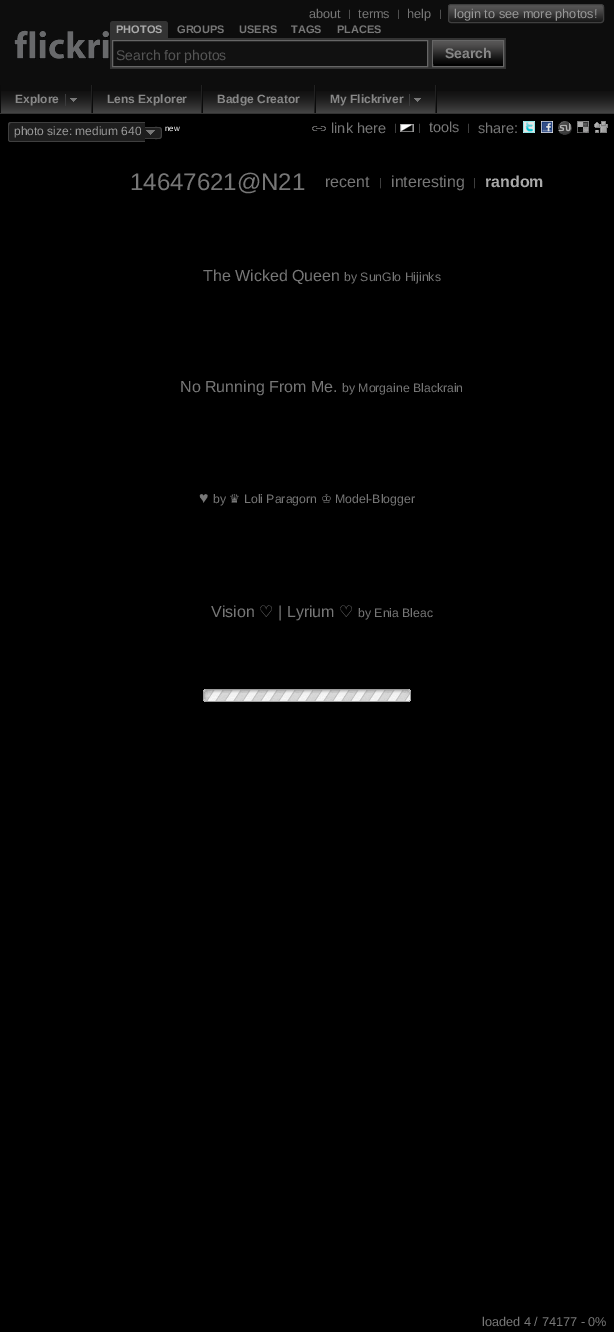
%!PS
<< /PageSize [614 1332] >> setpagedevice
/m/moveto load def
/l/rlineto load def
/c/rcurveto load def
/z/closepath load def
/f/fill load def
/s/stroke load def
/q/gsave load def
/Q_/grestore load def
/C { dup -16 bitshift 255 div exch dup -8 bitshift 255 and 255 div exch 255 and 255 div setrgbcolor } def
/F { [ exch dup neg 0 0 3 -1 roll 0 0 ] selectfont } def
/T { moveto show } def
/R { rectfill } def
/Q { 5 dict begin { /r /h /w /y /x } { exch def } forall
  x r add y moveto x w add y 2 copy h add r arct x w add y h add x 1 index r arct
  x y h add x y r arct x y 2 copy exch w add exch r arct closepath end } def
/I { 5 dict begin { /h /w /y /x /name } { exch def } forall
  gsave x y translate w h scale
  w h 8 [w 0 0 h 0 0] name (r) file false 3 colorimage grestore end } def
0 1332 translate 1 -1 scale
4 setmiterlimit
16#000000 C
0 0 614 1332 R
16#0D0D0D C
0 0 614 85 R
/LiberationSans-Regular 12.75 F
16#777777 C
(about) 309 18 T
(help) 407 18 T
(1.rgb) 448 5 156 18 I
/LiberationSans-Regular 10 F
16#666666 C
(|) 348 17 T
/LiberationSans-Regular 12.75 F
16#777777 C
(terms) 358 18 T
/LiberationSans-Regular 10 F
16#666666 C
(|) 397 17 T
(|) 439 17 T
16#3F3F3F C
448.5 4.5 155 18 2.5 Q s
/LiberationSans-Regular 12.75 F
16#999999 C
(login to see more photos!) 454 18 T
(2.rgb) 14 30 95 29 I
16#333333 C
113 21 m 52 0 l 1.5 0 3 1.5 3 3 c 0 14 l -58 0 l 0 -14 l 0 -1.5 1.5 -3 3 -3 c z f
/LiberationSans-Bold 11 F
16#AAAAAA C
(PHOTOS) 116 33 T
16#777777 C
(GROUPS) 177 33 T
(USERS) 239 33 T
(TAGS) 291 33 T
(PLACES) 337 33 T
16#333333 C
110 38 396 31 R
16#111111 C
112.5 40.5 m 315 0 l 0 26 l -315 0 l z q f Q_
16#666666 C
s
/LiberationSans-Regular 14 F
16#555555 C
(Search for photos) 116 60 T
16#000000 C
433 64 70 2 R
16#666666 C
432.5 40.5 71 26 rectstroke
(3.rgb) 433 41 70 23 I
/LiberationSans-Bold 14 F
16#888888 C
(Search) 445 58 T
16#0D0D0D C
1 85 613 6 R
(4.rgb) 1 91 613 22 I
16#333333 C
0 113 614 1 R
16#0B0B0B C
436 85 1 28 R
16#212121 C
91 85 1 28 R
16#0B0B0B C
0 85 1 28 R
/LiberationSans-Bold 12 F
16#888888 C
(Explore) 15 103 T
(5.rgb) 65 94 12 12 I
16#212121 C
201 85 1 28 R
16#0B0B0B C
92 85 1 28 R
16#888888 C
(Lens Explorer) 107 103 T
16#212121 C
314 85 1 28 R
16#0B0B0B C
202 85 1 28 R
16#888888 C
(Badge Creator) 217 103 T
16#212121 C
435 85 1 28 R
16#0B0B0B C
315 85 1 28 R
16#888888 C
(My Flickriver) 330 103 T
(5.rgb) 409 94 12 12 I
16#1E1E1E C
11 122 m 130 0 l 0 20 l -130 0 l -1.5 0 -3 -1.5 -3 -3 c 0 -14 l 0 -1.5 1.5 -3 3 -3 c z f
16#3F3F3F C
11 122 m 130 0 l 0 20 l -130 0 l -2 0 -3 -1 -3 -3 c 0 -14 l 0 -2 1 -3 3 -3 c z 11 123 m 130 0 l 0 18 l -131 0 l -1 -1 l 0 -8 l 0 -2 -1 -9 2 -9 c z eofill
/LiberationSans-Regular 12 F
16#999999 C
(photo size: medium 640) 14 135 T
16#1E1E1E C
141 122 4 20 R
16#3F3F3F C
141 122 4 1 R
141 141 4 1 R
16#1E1E1E C
145 127 m 14 0 l 1.5 0 3 1.5 3 3 c 0 6 l 0 1.5 -1.5 3 -3 3 c -14 0 l z f
16#3F3F3F C
145 127 m 9.5 0 l 6.5 0 7.5 -.5 7.5 6 c 0 6.5 -1 6 -7.5 6 c -9.5 0 l z 145 128 m 9.5 0 l 6 0 6.5 -1 6.5 5 c 0 6 -.5 5 -6.5 5 c -9.5 0 l z eofill
/LiberationSans-Regular 8 F
16#FFFFFF C
(new) 165 131 T
(6.rgb) 146 130 9 5 I
(7.rgb) 312 126 14 5 I
/LiberationSans-Regular 14.5 F
16#777777 C
(link here) 331 133 T
/LiberationSans-Regular 10 F
16#555555 C
(|) 394 131 T
(8.rgb) 400 124 14 8 I
(|) 418 131 T
/LiberationSans-Regular 14.5 F
16#777777 C
(tools) 429 132 T
/LiberationSans-Regular 10 F
16#555555 C
(|) 467 131 T
/LiberationSans-Regular 14.5 F
16#777777 C
(share:) 478 133 T
(9.rgb) 523 121 12 12 I
(10.rgb) 541 121 12 12 I
(11.rgb) 558 121 14 14 I
(12.rgb) 577 121 12 12 I
(13.rgb) 594 121 14 12 I
/LiberationSans-Regular 24 F
(14647621@N21) 130 190 T
/LiberationSans-Regular 16 F
(recent) 325 187 T
/LiberationSans-Regular 11 F
16#555555 C
(|) 379 186 T
/LiberationSans-Regular 16 F
16#777777 C
(interesting) 391 187 T
/LiberationSans-Regular 11 F
16#555555 C
(|) 473 186 T
/LiberationSans-Bold 16 F
16#AAAAAA C
(random) 485 187 T
/LiberationSans-Regular 16 F
16#777777 C
(The Wicked Queen) 203 281 T
/LiberationSans-Regular 12.25 F
(by SunGlo Hijinks) 344 281 T
/LiberationSans-Regular 16 F
(No Running From Me.) 180 392 T
/LiberationSans-Regular 12.25 F
(by Morgaine Blackrain) 342 392 T
/LiberationSans-Regular 16 F
(♥) 199 503 T
/LiberationSans-Regular 12.25 F
(by) 213 503 T
/DejaVuSans-Regular 12.25 F
(♛) 229 503 T
/LiberationSans-Regular 12.25 F
(Loli Paragorn) 244 503 T
/DejaVuSans-Regular 12.25 F
(♔) 321 503 T
/LiberationSans-Regular 12.25 F
(Model-Blogger) 335 503 T
/LiberationSans-Regular 16 F
(Vision) 211 617 T
/DejaVuSans-Regular 16 F
(♡) 259 617 T
/LiberationSans-Regular 16 F
(| Lyrium) 278 617 T
/DejaVuSans-Regular 16 F
(♡) 339 617 T
/LiberationSans-Regular 12.25 F
(by Enia Bleac) 358 617 T
(14.rgb) 203 689 208 13 I
/LiberationSans-Regular 12.75 F
(loaded 4 / 74177 - 0%) 482 1326 T
showpage
